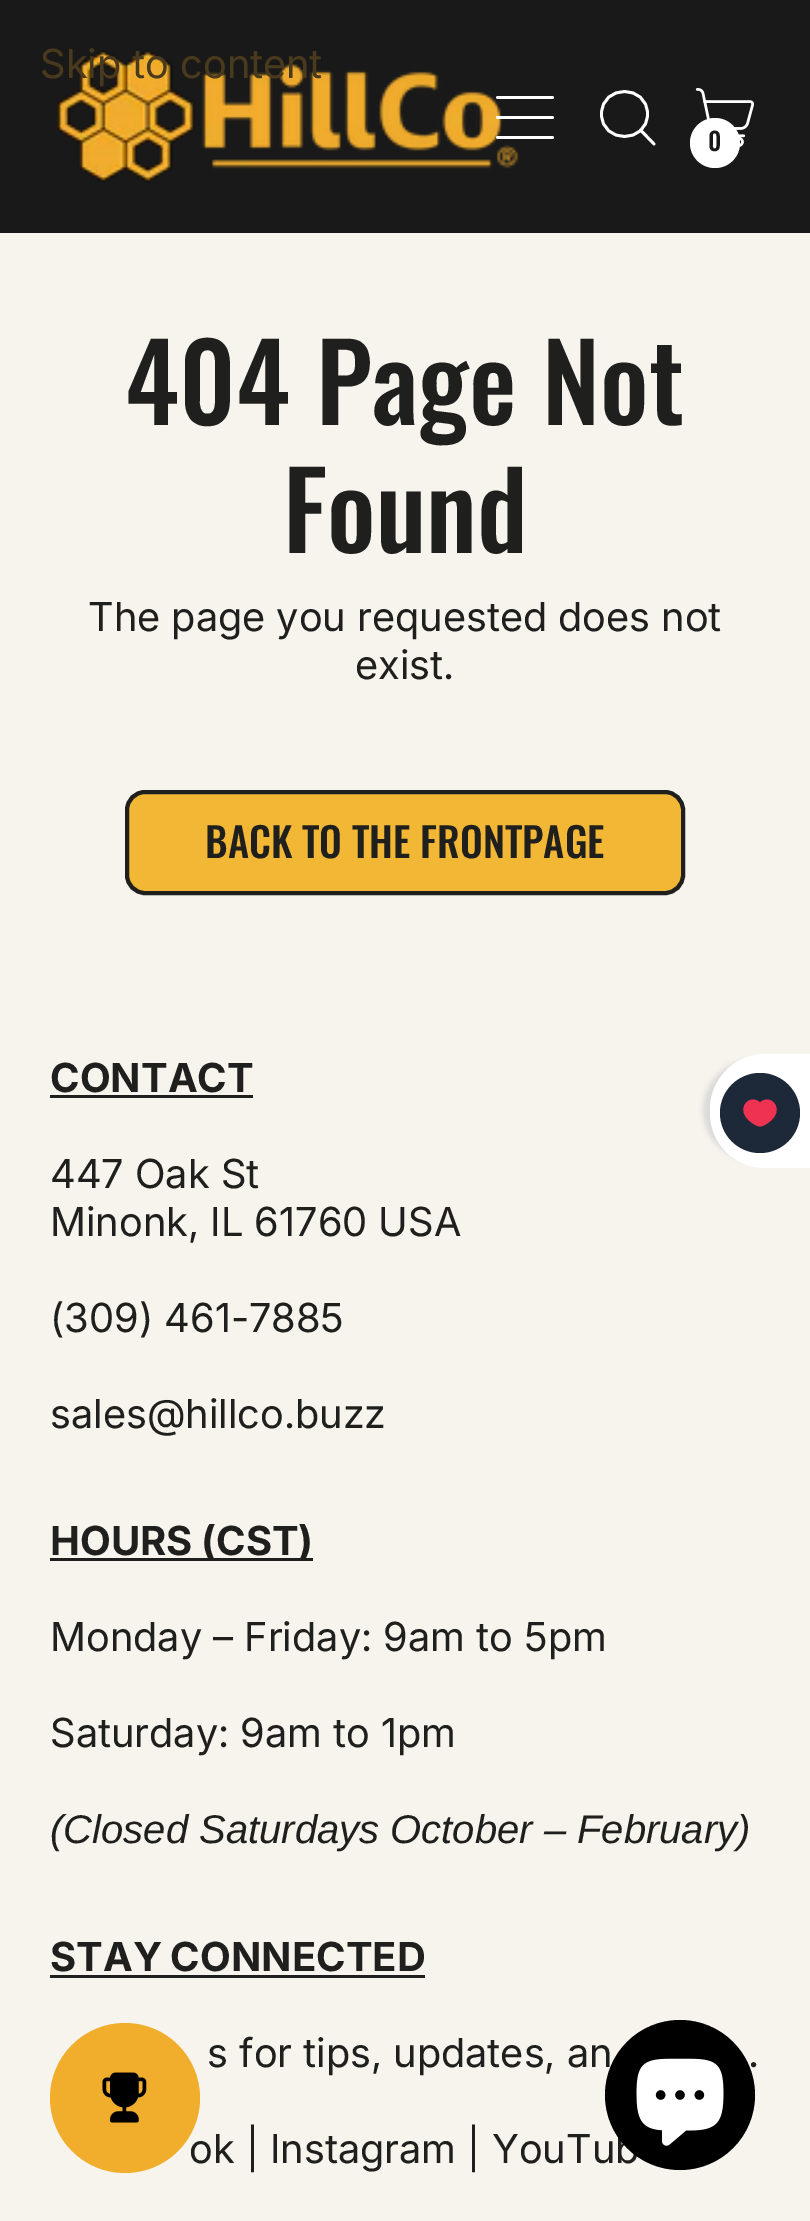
%!PS
<< /PageSize [810 2221] /PageUsesTransparency true >> setpagedevice
/m/moveto load def
/l/rlineto load def
/c/rcurveto load def
/z/closepath load def
/f/fill load def
/s/stroke load def
/q/gsave load def
/Q_/grestore load def
/w/setlinewidth load def
/C { dup -16 bitshift 255 div exch dup -8 bitshift 255 and 255 div exch 255 and 255 div setrgbcolor } def
/F { [ exch dup neg 0 0 3 -1 roll 0 0 ] selectfont } def
/T { moveto show } def
/R { rectfill } def
/A { dup .setfillconstantalpha .setstrokeconstantalpha } def
/O { newpath 0 360 arc closepath } def
/Q { 5 dict begin { /r /h /w /y /x } { exch def } forall
  x r add y moveto x w add y 2 copy h add r arct x w add y h add x 1 index r arct
  x y h add x y r arct x y 2 copy exch w add exch r arct closepath end } def
/S { 12 dict begin { /a /b /q /h /w /y /x } { exch def } forall gsave /was 0 def
  9 -2 -9 { dup b mul 4 div /e exch def 1 sub .425 mul 2.718 exch exp 1 add a .99 .min exch div /now exch def
    1 1 now sub 1 was sub div sub A /was now def
    w h .min e 2 mul add 0 gt { x e sub y e sub w e 2 mul add h e 2 mul add
      q e add b .6 mul add w h .min 2 div e add .min 0 .max Q fill } if } for grestore end } def
/I { 5 dict begin { /h /w /y /x /name } { exch def } forall
  gsave x y translate w h scale
  w h 8 [w 0 0 h 0 0] name (r) file false 3 colorimage grestore end } def
0 .pushpdf14devicefilter
0 2221 translate 1 -1 scale
4 setmiterlimit
16#F7F4EE C
0 0 810 2221 R
16#191919 C
0 0 810 233 R
(1.rgb) 57 50 462 133 I
/Inter-Regular 40 F
16#4A3A1D C
(Skip to content) 40 78 T
16#FFFFFF C
2.8 w
1 setlinecap
1 setlinejoin
552.5 137.5 m -55 0 l 552.5 117.5 m -55 0 l 552.5 97.5 m -55 0 l s
601.5 114 m 0 30 46 30 46 0 c 0 -30 -46 -30 -46 0 c z 654 144 m -13.5 -14 l s
(2.rgb) 695 88 59 59 I
715 143 25 O f
/Oswald-Medium 25 F
16#191919 C
(0) 708 151 T
/Oswald-Medium 106.75 F
16#1F1F1D C
(404 Page Not) 125 425 T
(Found) 283 553 T
/Inter-Regular 40 F
(The page you requested does not) 88 631 T
(exist.) 355 679 T
16#F2B835 C
127 792 556 101 18 Q q f Q_
16#1F1F1D C
4 w
0 setlinecap
0 setlinejoin
s
/Oswald-Medium 40.5 F
(BACK TO THE FRONTPAGE) 205 858 T
16#DADADA C
703 1060 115 100 55 2.5 1 S
16#FFFFFF C
710 1113 m 0 -4 l 0 -30 25 -55 55 -55 c 45 0 l 0 114 l -45 0 l -30 0 -55 -24 -55 -55 c z f
16#1D2939 C
760 1113 40 O f
16#EF3251 C
760 1102.5 m -10.5 -10 -26.5 7.5 -8.5 20 c 2 1.5 6 4 8.5 4 c 2.5 0 6.5 -2.5 8.5 -4 c 18 -12.5 2 -30 -8.5 -20 c z f
/Inter-Regular 40 F
16#1F1F1D C
(ok | Instagram | YouTub) 189 2163 T
16#F1AE2D C
125 2098 75 O f
(3.rgb) 102 2072 45 51 I
/Inter-Bold 40 F
16#1F1F1D C
(CONTACT) 50 1092 T
50 1095 203 3 R
/Inter-Regular 40 F
(447 Oak St) 50 1188 T
(Minonk, IL 61760 USA) 50 1236 T
(\(309\) 461-7885) 50 1332 T
(sales@hillco.buzz) 50 1428 T
50 1558 263 3 R
/Inter-Bold 40 F
50 1555 m -1 0 32 (HOURS \(CST\)) widthshow
/Inter-Regular 40 F
(Monday – Friday: 9am to 5pm) 50 1651 T
(Saturday: 9am to 1pm) 50 1747 T
/LiberationSans-Italic 40 F
(\(Closed Saturdays October – February\)) 50 1843 T
/Inter-Bold 40 F
50 1971 m -1 0 32 (STAY CONNECTED) widthshow
50 1975 375 3 R
/Inter-Regular 40 F
(s for tips, updates, an) 207 2067 T
(.) 748 2067 T
16#000000 C
680 2095 75 O f
(4.rgb) 636 2058 88 88 I
.poppdf14devicefilter showpage
